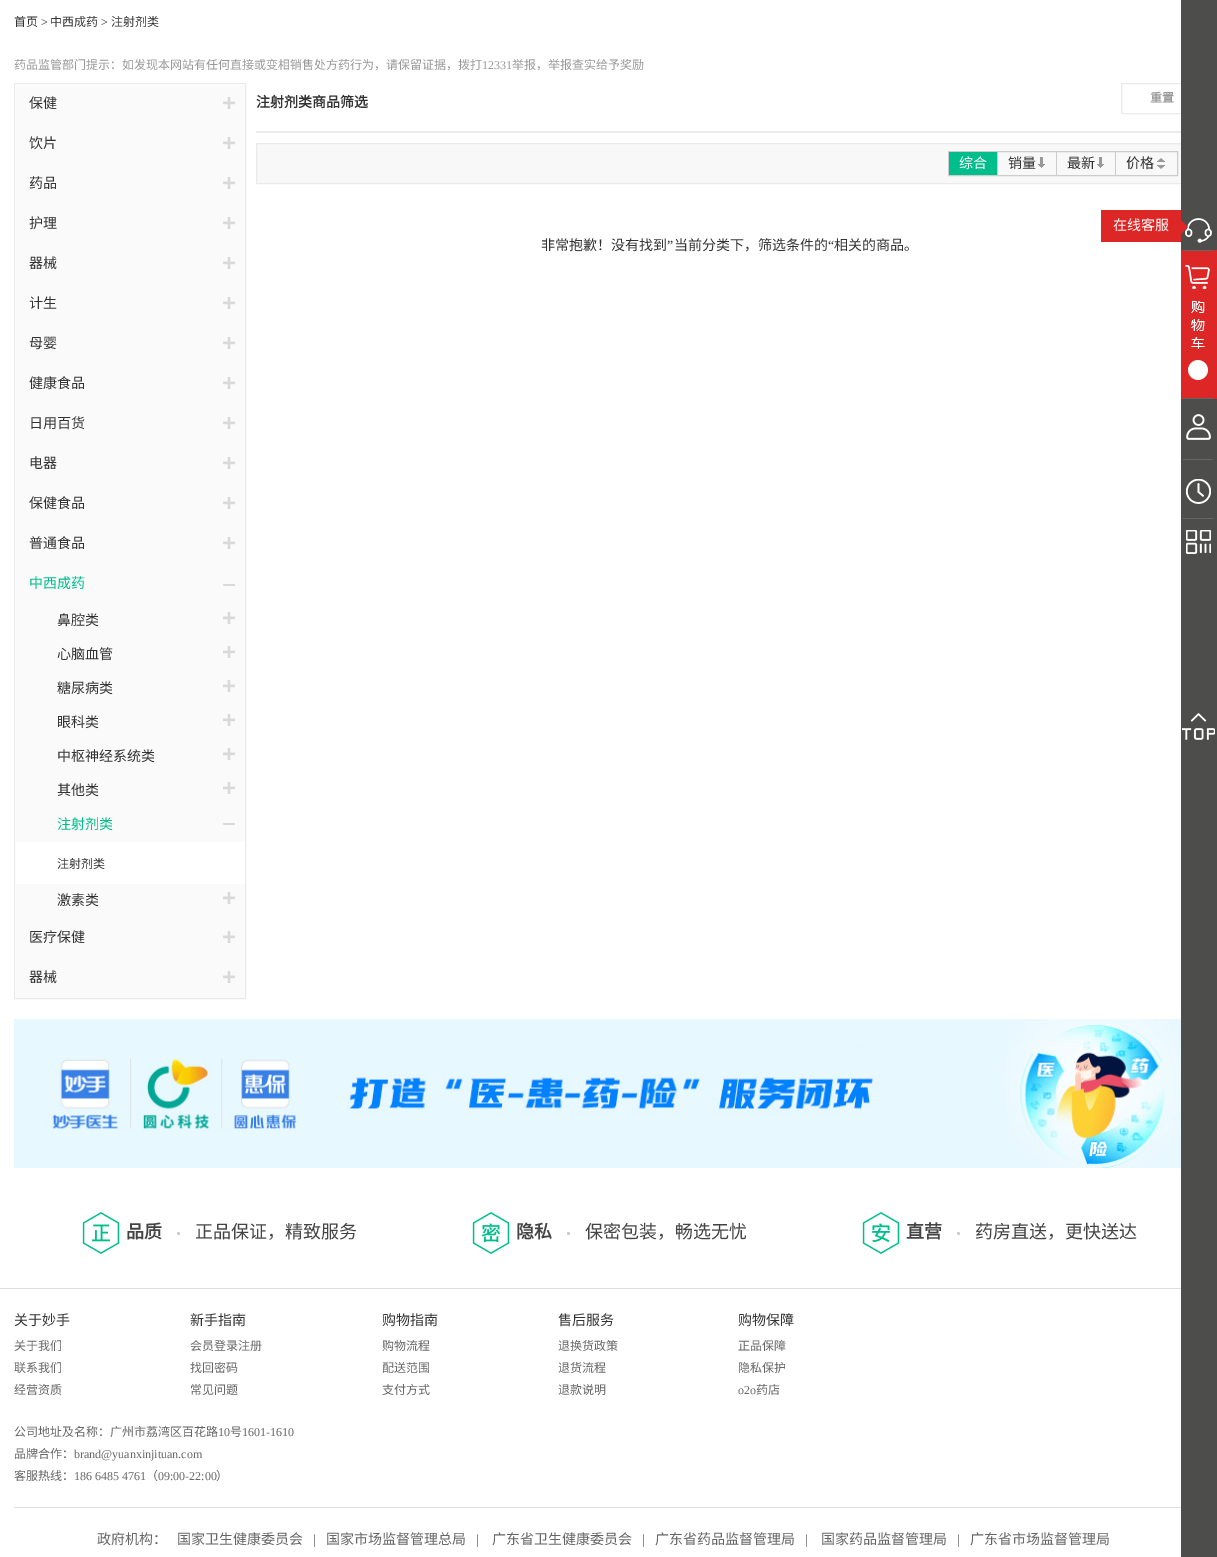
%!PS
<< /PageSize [1217 1557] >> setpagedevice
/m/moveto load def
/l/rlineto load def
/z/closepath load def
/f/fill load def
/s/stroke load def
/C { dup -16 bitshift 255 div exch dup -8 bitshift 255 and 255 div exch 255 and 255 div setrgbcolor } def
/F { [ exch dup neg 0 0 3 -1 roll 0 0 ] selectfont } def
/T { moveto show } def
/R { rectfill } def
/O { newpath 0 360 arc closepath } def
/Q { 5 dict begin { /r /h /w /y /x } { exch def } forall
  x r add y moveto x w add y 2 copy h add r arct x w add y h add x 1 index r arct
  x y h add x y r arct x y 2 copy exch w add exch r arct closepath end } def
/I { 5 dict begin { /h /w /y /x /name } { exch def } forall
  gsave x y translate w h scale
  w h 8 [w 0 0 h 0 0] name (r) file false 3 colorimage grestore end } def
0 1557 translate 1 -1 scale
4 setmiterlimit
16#FFFFFF C
0 0 1217 1557 R
/NotoSansCJKSC-Regular 12 F
16#333333 C
(首页) 14 26 T
/LiberationSerif-Regular 12 F
(>) 41 26 T
/NotoSansCJKSC-Regular 12 F
(中西成药) 50 26 T
/LiberationSerif-Regular 12 F
(>) 101 26 T
/NotoSansCJKSC-Regular 12 F
(注射剂类) 111 26 T
16#999999 C
(药品监管部门提示：如发现本网站有任何直接或变相销售处方药行为，请保留证据，拨打) 14 69 T
/LiberationSerif-Regular 12 F
(12331) 482 69 T
/NotoSansCJKSC-Regular 12 F
(举报，举报查实给予奖励) 512 69 T
16#EAEAEA C
14.5 83.5 231 915 rectstroke
16#FAFAFA C
15 84 230 758 R
/NotoSansCJKSC-Regular 14 F
16#333333 C
(保健) 29 108 T
(1.rgb) 223 97 12 12 I
(饮片) 29 148 T
(1.rgb) 223 137 12 12 I
(药品) 29 188 T
(1.rgb) 223 177 12 12 I
(护理) 29 228 T
(1.rgb) 223 217 12 12 I
(器械) 29 268 T
(1.rgb) 223 257 12 12 I
(计生) 29 308 T
(1.rgb) 223 297 12 12 I
(母婴) 29 348 T
(1.rgb) 223 337 12 12 I
(健康食品) 29 388 T
(1.rgb) 223 377 12 12 I
(日用百货) 29 428 T
(1.rgb) 223 417 12 12 I
(电器) 29 468 T
(1.rgb) 223 457 12 12 I
(保健食品) 29 508 T
(1.rgb) 223 497 12 12 I
(普通食品) 29 548 T
(1.rgb) 223 537 12 12 I
16#00BE8C C
(中西成药) 29 588 T
(2.rgb) 223 584 12 2 I
16#333333 C
(鼻腔类) 57 625 T
(1.rgb) 223 612 12 12 I
(心脑血管) 57 659 T
(1.rgb) 223 646 12 12 I
(糖尿病类) 57 693 T
(1.rgb) 223 680 12 12 I
(眼科类) 57 727 T
(1.rgb) 223 714 12 12 I
(中枢神经系统类) 57 761 T
(1.rgb) 223 748 12 12 I
(其他类) 57 795 T
(1.rgb) 223 782 12 12 I
16#00BE8C C
(注射剂类) 57 829 T
(2.rgb) 223 823 12 2 I
/NotoSansCJKSC-Regular 12 F
16#333333 C
(注射剂类) 57 868 T
16#FAFAFA C
15 884 230 114 R
/NotoSansCJKSC-Regular 14 F
16#333333 C
(激素类) 57 905 T
(1.rgb) 223 892 12 12 I
(医疗保健) 29 942 T
(1.rgb) 223 931 12 12 I
(器械) 29 982 T
(1.rgb) 223 971 12 12 I
/NotoSansCJKSC-Bold 14 F
(注射剂类商品筛选) 256 107 T
16#EAEAEA C
1121.5 83.5 82 30 1.5 Q s
/NotoSansCJKSC-Bold 12 F
16#999999 C
(重置) 1150 102 T
16#EAEAEA C
256 131 925 2 R
16#F8F8F8 C
257 144 924 39 R
16#EAEAEA C
256.5 143.5 947 40 rectstroke
16#CCCCCC C
948.5 151.5 229 24 rectstroke
16#00BE8C C
949 152 48 23 R
16#CCCCCC C
997 152 1 23 R
/NotoSansCJKSC-Regular 14 F
16#FFFFFF C
(综合) 959 168 T
16#CCCCCC C
1056 152 1 23 R
16#333333 C
(销量) 1008 168 T
(3.rgb) 1038 157 7 11 I
16#CCCCCC C
1115 152 1 23 R
16#333333 C
(最新) 1067 168 T
(3.rgb) 1097 157 7 11 I
(价格) 1126 168 T
(4.rgb) 1157 158 8 11 I
(非常抱歉！没有找到) 541 250 T
/LiberationSerif-Regular 14 F
(”) 667 250 T
/NotoSansCJKSC-Regular 14 F
(当前分类下，筛选条件的) 674 250 T
/LiberationSerif-Regular 14 F
(“) 828 250 T
/NotoSansCJKSC-Regular 14 F
(相关的商品。) 834 250 T
16#4D4D4C C
1181 0 36 1557 R
(5.rgb) 1185 218 27 25 I
16#DD2726 C
1101 210 80 32 R
16#FFFFFF C
(在线客服) 1113 230 T
16#DD2726 C
1181 234 m 0 -14 l 7 7 l z f
1181 250 36 149 R
(6.rgb) 1183 250 30 149 I
(7.rgb) 1183 414 30 46 I
(8.rgb) 1183 479 30 40 I
(9.rgb) 1186 530 25 24 I
(10.rgb) 1182 713 33 27 I
(11.rgb) 14 1019 1167 149 I
(12.rgb) 82 1212 38 42 I
/NotoSansCJKSC-Bold 18 F
16#444444 C
(品质) 126 1238 T
16#CCCCCC C
178.5 1233.5 1.5 O f
/NotoSansCJKSC-Regular 18 F
16#444444 C
(正品保证，精致服务) 195 1238 T
(13.rgb) 472 1212 38 42 I
/NotoSansCJKSC-Bold 18 F
(隐私) 516 1238 T
16#CCCCCC C
568.5 1233.5 1.5 O f
/NotoSansCJKSC-Regular 18 F
16#444444 C
(保密包装，畅选无忧) 585 1238 T
(14.rgb) 862 1212 38 42 I
/NotoSansCJKSC-Bold 18 F
(直营) 906 1238 T
16#CCCCCC C
958.5 1233.5 1.5 O f
/NotoSansCJKSC-Regular 18 F
16#444444 C
(药房直送，更快送达) 975 1238 T
16#DEDEDE C
0 1288 1181 1 R
/NotoSansCJKSC-Regular 14 F
16#333333 C
(关于妙手) 14 1325 T
/NotoSansCJKSC-Regular 12 F
16#666666 C
(关于我们) 14 1350 T
(联系我们) 14 1372 T
(经营资质) 14 1394 T
/NotoSansCJKSC-Regular 14 F
16#333333 C
(新手指南) 190 1325 T
/NotoSansCJKSC-Regular 12 F
16#666666 C
(会员登录注册) 190 1350 T
(找回密码) 190 1372 T
(常见问题) 190 1394 T
/NotoSansCJKSC-Regular 14 F
16#333333 C
(购物指南) 382 1325 T
/NotoSansCJKSC-Regular 12 F
16#666666 C
(购物流程) 382 1350 T
(配送范围) 382 1372 T
(支付方式) 382 1394 T
/NotoSansCJKSC-Regular 14 F
16#333333 C
(售后服务) 558 1325 T
/NotoSansCJKSC-Regular 12 F
16#666666 C
(退换货政策) 558 1350 T
(退货流程) 558 1372 T
(退款说明) 558 1394 T
/NotoSansCJKSC-Regular 14 F
16#333333 C
(购物保障) 738 1325 T
/NotoSansCJKSC-Regular 12 F
16#666666 C
(正品保障) 738 1350 T
(隐私保护) 738 1372 T
/LiberationSerif-Regular 12 F
(o2o) 738 1394 T
/NotoSansCJKSC-Regular 12 F
(药店) 756 1394 T
(公司地址及名称：广州市荔湾区百花路) 14 1436 T
/LiberationSerif-Regular 12 F
(10) 218 1436 T
/NotoSansCJKSC-Regular 12 F
(号) 230 1436 T
/LiberationSerif-Regular 12 F
(1601-1610) 242 1436 T
/NotoSansCJKSC-Regular 12 F
(品牌合作：) 14 1458 T
/LiberationSerif-Regular 12 F
(brand@yuanxinjituan.com) 74 1458 T
/NotoSansCJKSC-Regular 12 F
(客服热线：) 14 1480 T
/LiberationSerif-Regular 12 F
(186 6485 4761) 74 1480 T
/NotoSansCJKSC-Regular 12 F
(（) 146 1480 T
/LiberationSerif-Regular 12 F
(09:00-22:00) 158 1480 T
/NotoSansCJKSC-Regular 12 F
(）) 216 1480 T
16#DEDEDE C
14 1507 1167 1 R
/NotoSansCJKSC-Regular 14 F
16#666666 C
(政府机构：) 97 1544 T
(国家卫生健康委员会) 177 1544 T
/LiberationSerif-Regular 14 F
(|) 313 1544 T
/NotoSansCJKSC-Regular 14 F
(国家市场监督管理总局) 326 1544 T
/LiberationSerif-Regular 14 F
(|) 476 1544 T
/NotoSansCJKSC-Regular 14 F
(广东省卫生健康委员会) 492 1544 T
/LiberationSerif-Regular 14 F
(|) 642 1544 T
/NotoSansCJKSC-Regular 14 F
(广东省药品监督管理局) 655 1544 T
/LiberationSerif-Regular 14 F
(|) 805 1544 T
/NotoSansCJKSC-Regular 14 F
(国家药品监督管理局) 821 1544 T
/LiberationSerif-Regular 14 F
(|) 957 1544 T
/NotoSansCJKSC-Regular 14 F
(广东省市场监督管理局) 970 1544 T
showpage
